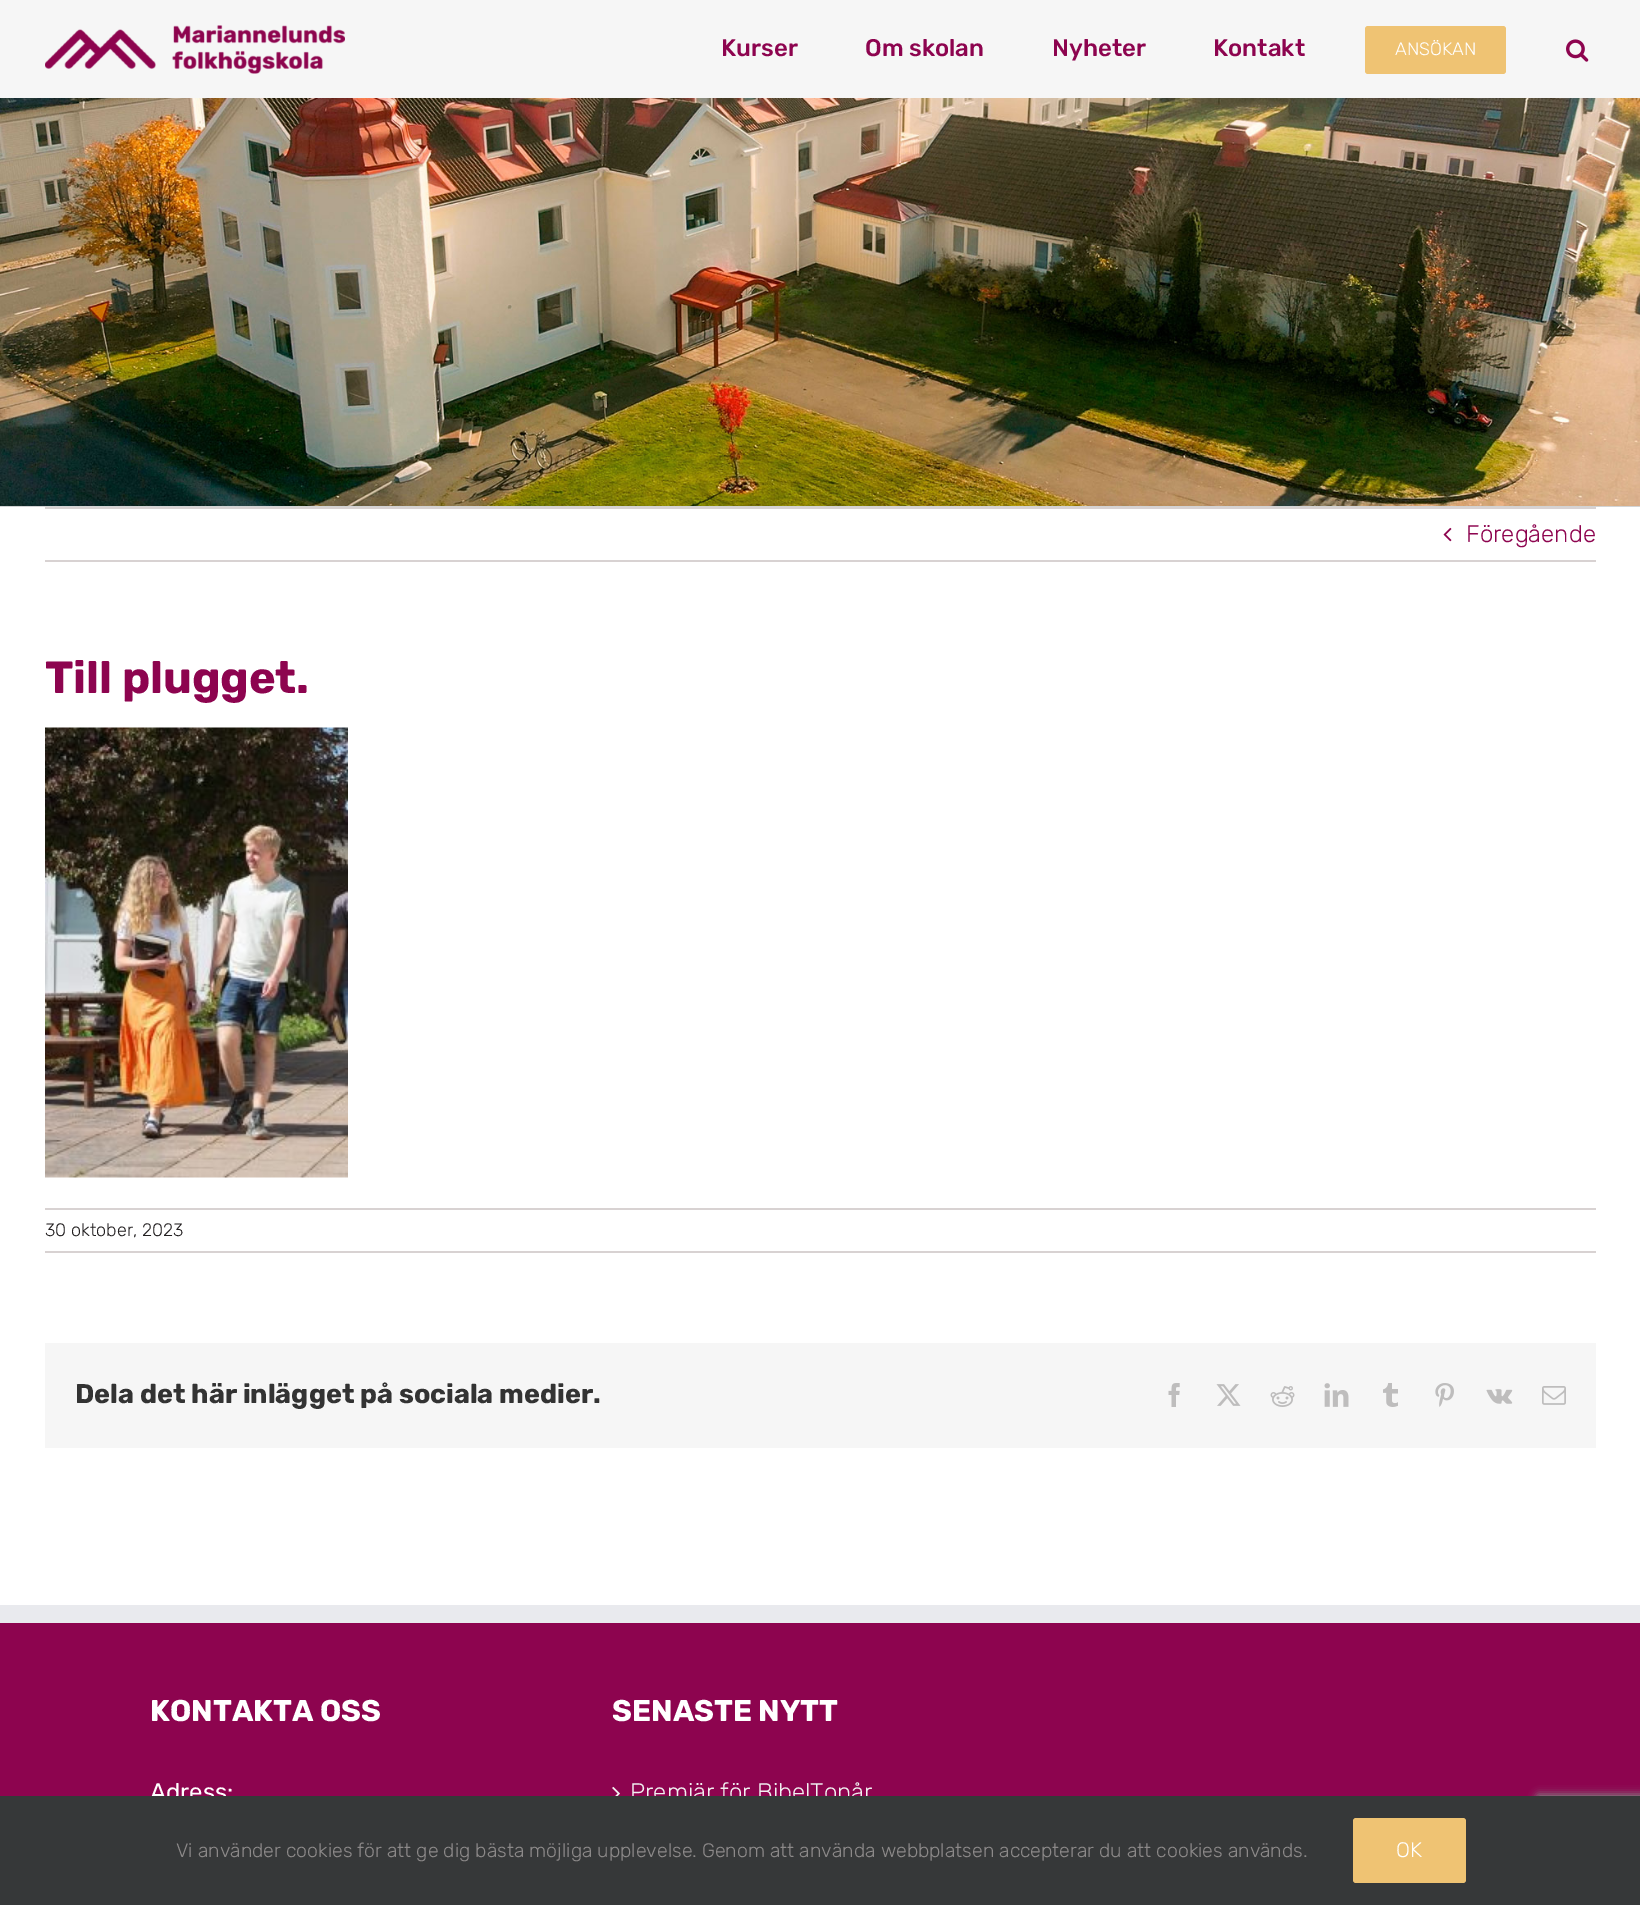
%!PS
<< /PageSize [1640 1905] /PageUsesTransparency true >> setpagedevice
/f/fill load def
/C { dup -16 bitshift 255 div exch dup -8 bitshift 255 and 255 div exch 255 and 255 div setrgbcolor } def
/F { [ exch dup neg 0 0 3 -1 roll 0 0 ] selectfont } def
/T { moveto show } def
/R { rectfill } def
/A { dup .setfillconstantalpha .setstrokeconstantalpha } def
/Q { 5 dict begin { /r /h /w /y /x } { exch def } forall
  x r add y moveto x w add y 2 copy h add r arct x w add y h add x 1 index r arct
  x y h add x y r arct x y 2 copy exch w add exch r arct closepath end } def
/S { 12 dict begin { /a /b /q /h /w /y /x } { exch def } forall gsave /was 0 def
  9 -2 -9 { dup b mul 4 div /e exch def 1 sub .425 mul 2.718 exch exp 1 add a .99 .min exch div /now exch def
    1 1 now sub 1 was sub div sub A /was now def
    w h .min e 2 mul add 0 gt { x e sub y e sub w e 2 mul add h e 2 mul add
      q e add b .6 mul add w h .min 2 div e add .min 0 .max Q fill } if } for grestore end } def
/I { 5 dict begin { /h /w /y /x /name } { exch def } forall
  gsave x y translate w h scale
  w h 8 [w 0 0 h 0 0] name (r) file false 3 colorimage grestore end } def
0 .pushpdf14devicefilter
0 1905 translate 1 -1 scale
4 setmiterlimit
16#FFFFFF C
0 0 1640 1905 R
16#F6F6F6 C
0 0 1640 98 R
(1.rgb) 45 25 300 49 I
/Rubik-Medium 24 F
16#8D044F C
(Kurser) 721 56 T
(Om skolan) 865 56 T
(Nyheter) 1052 56 T
(Kontakt) 1213 56 T
16#EFC373 C
1365 26 141 48 3 Q f
/Rubik-Light 18 F
16#FFFFFF C
(ANSÖKAN) 1395 55 T
(2.rgb) 1566 39 23 23 I
(3.rgb) 0 98 1640 408 I
16#D2D3D4 C
0 506 1640 1 R
16#D8D2D2 C
45 507 1551 2 R
45 560 1551 2 R
(4.rgb) 1443 527 9 15 I
/Rubik-Light 24 F
16#8D044F C
(Föregående) 1466 542 T
/Rubik-Bold 45 F
(Till plugget.) 45 693 T
(5.rgb) 45 727 303 451 I
16#D8D2D2 C
45 1208 1551 2 R
45 1251 1551 2 R
/Rubik-Light 18 F
16#232021 C
(30 oktober, 2023) 45 1236 T
16#F6F6F6 C
45 1343 1551 105 R
/Rubik-Bold 27 F
16#333333 C
(Dela det här inlägget på sociala medier.) 75 1403 T
(6.rgb) 1168 1383 12 24 I
(7.rgb) 1216 1384 25 22 I
(8.rgb) 1270 1386 25 21 I
(9.rgb) 1324 1383 25 24 I
(10.rgb) 1383 1383 15 24 I
(11.rgb) 1435 1383 19 24 I
(12.rgb) 1486 1389 27 15 I
(13.rgb) 1542 1386 24 19 I
16#8D044F C
0 1623 1640 173 R
16#E9EAEE C
0 1605 1640 18 R
/Rubik-Bold 30 F
16#FFFFFF C
(KONTAKTA OSS) 150 1721 T
/Rubik-Regular 24 F
(Adress:) 150 1800 T
/Rubik-Bold 30 F
(SENASTE NYTT) 612 1721 T
(14.rgb) 612 1786 8 10 I
/Rubik-Light 24 F
16#F1F1F1 C
(Premiär för BibelTonår) 630 1800 T
16#808080 C
1536 1794 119 90 3 4 1 S
16#363839 C
0 1796 1640 109 R
/Rubik-Light 19.5 F
16#8C8989 C
(Vi använder cookies för att ge dig bästa möjliga upplevelse. Genom att använda webbplatsen accepterar du att cookies används.) 176 1857 T
16#EFC373 C
1353 1818 113 65 3 Q f
/Rubik-Light 21 F
16#FFFFFF C
(OK) 1396 1857 T
.poppdf14devicefilter showpage
